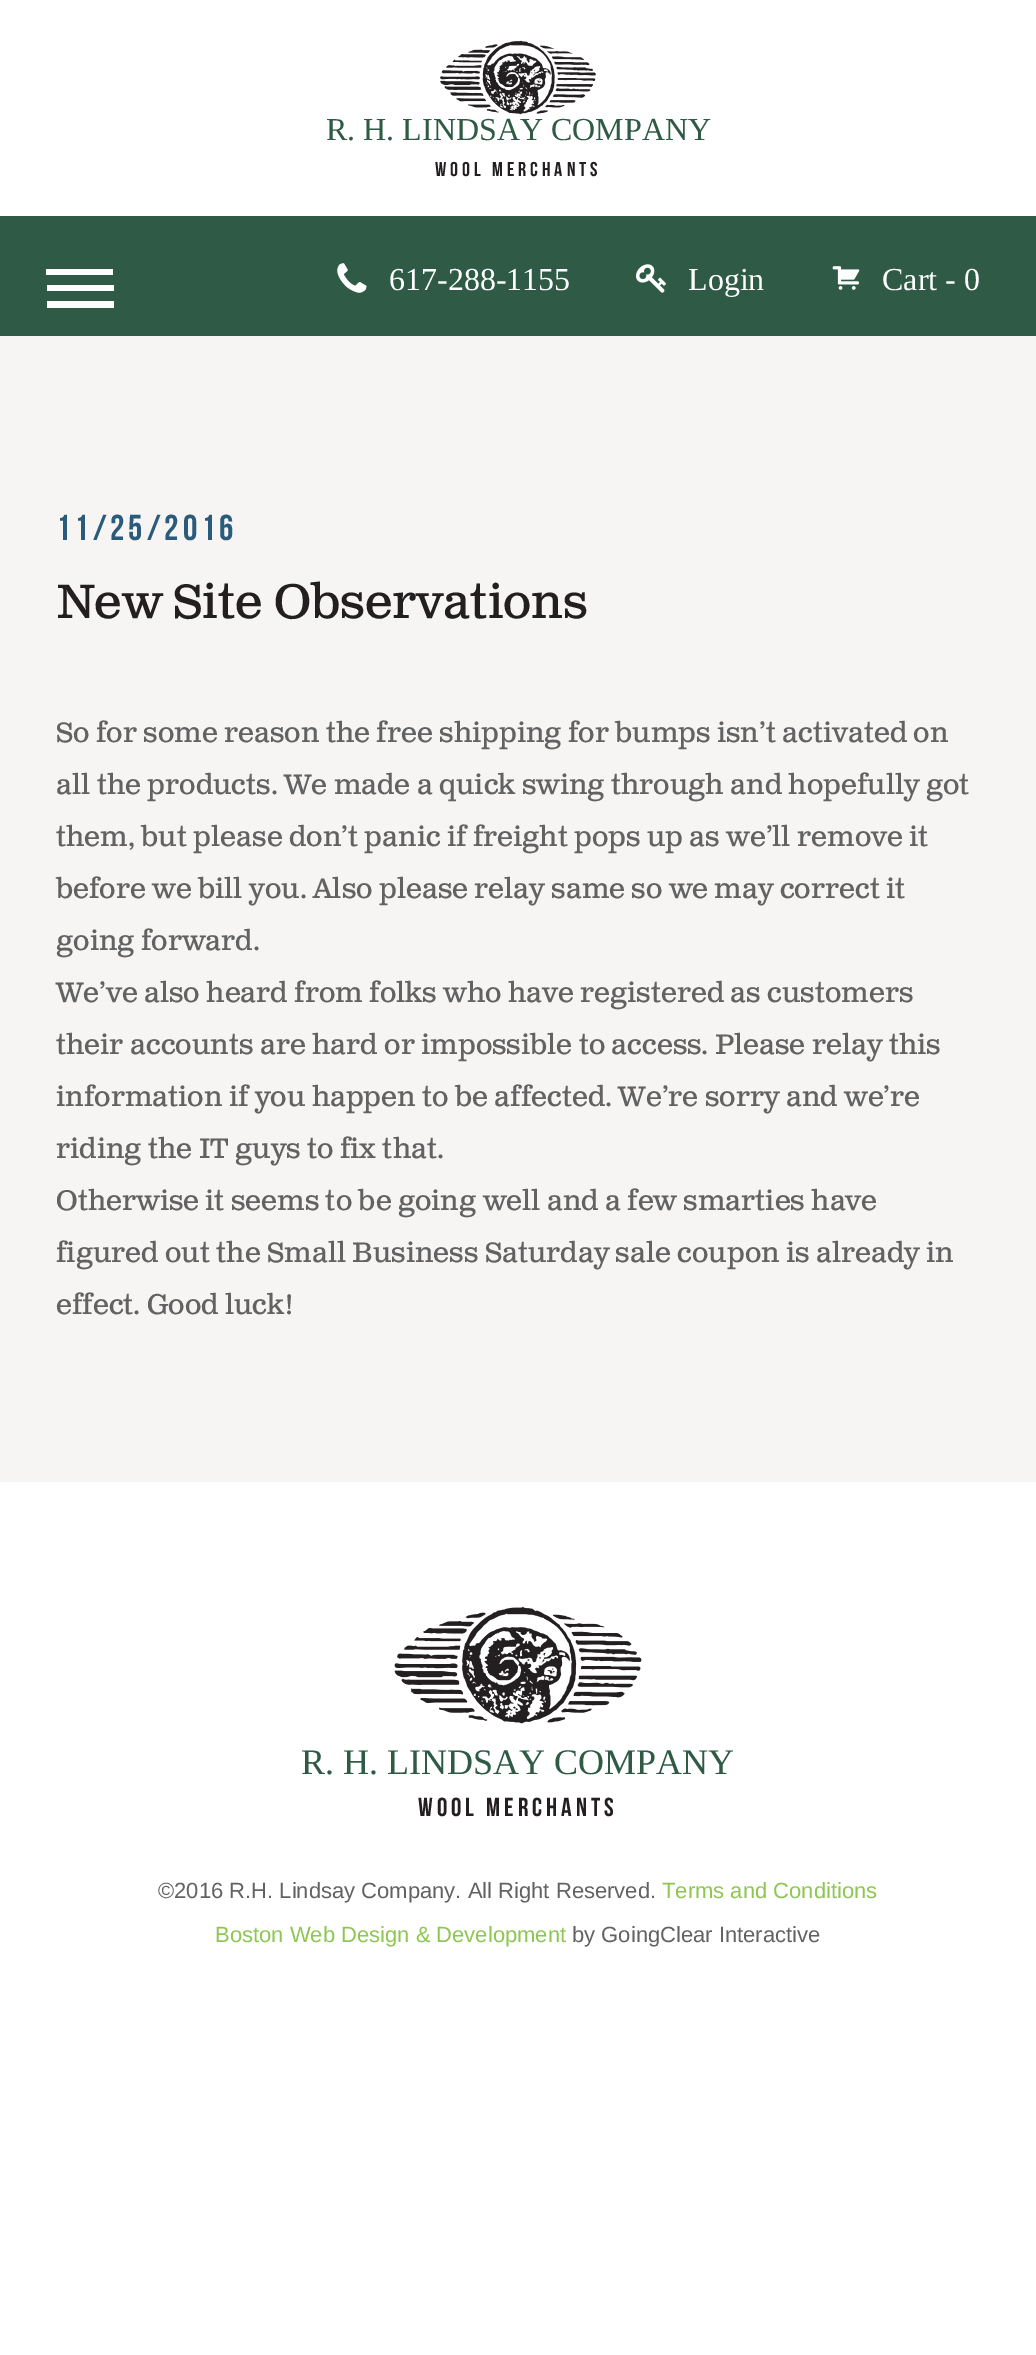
%!PS
<< /PageSize [1036 2355] >> setpagedevice
/m/moveto load def
/l/rlineto load def
/z/closepath load def
/f/fill load def
/C { dup -16 bitshift 255 div exch dup -8 bitshift 255 and 255 div exch 255 and 255 div setrgbcolor } def
/F { [ exch dup neg 0 0 3 -1 roll 0 0 ] selectfont } def
/T { moveto show } def
/R { rectfill } def
/I { 5 dict begin { /h /w /y /x /name } { exch def } forall
  gsave x y translate w h scale
  w h 8 [w 0 0 h 0 0] name (r) file false 3 colorimage grestore end } def
0 2355 translate 1 -1 scale
4 setmiterlimit
16#FFFFFF C
0 0 1036 2355 R
(1.rgb) 440 40 156 75 I
/LiberationSerif-Regular 32 F
16#2E5A46 C
(R. H. LINDSAY COMPANY) 326 140 T
/BebasNeue-Regular 20 F
16#231F20 C
435 176 m 4 0 (WOOL MERCHANTS) ashow
16#2E5A46 C
0 216 1036 120 R
16#FFFFFF C
46 269 m 0 6 l 67 0 l 0 -6 l z 47 285 m 0 6 l 67 0 l 0 -6 l z 47 301 m 0 7 l 67 0 l 0 -7 l z f
(2.rgb) 337 263 30 30 I
/LiberationSerif-Regular 32 F
(617-288-1155) 389 290 T
(3.rgb) 636 264 30 29 I
(Login) 688 290 T
(4.rgb) 832 266 28 24 I
(Cart - 0) 882 290 T
16#F7F5F4 C
0 336 1036 1146 R
/BebasNeue-Regular 36 F
16#2A5B7B C
56 540 m 4 0 (11/25/2016) ashow
/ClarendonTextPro-Regular 48 F
16#231F20 C
(New Site Observations) 56 618 T
/ClarendonTextPro-Regular 28 F
16#626263 C
(So for some reason the free shipping for bumps isn’t activated on) 56 742 T
(all the products. We made a quick swing through and hopefully got) 56 794 T
(them, but please don’t panic if freight pops up as we’ll remove it) 56 846 T
(before we bill you. Also please relay same so we may correct it) 56 898 T
(going forward.) 56 950 T
(We’ve also heard from folks who have registered as customers) 56 1002 T
(their accounts are hard or impossible to access. Please relay this) 56 1054 T
(information if you happen to be affected. We’re sorry and we’re) 56 1106 T
(riding the IT guys to fix that.) 56 1158 T
(Otherwise it seems to be going well and a few smarties have) 56 1210 T
(figured out the Small Business Saturday sale coupon is already in) 56 1262 T
(effect. Good luck!) 56 1314 T
(5.rgb) 394 1606 248 118 I
/LiberationSerif-Regular 36 F
16#2E5A46 C
(R. H. LINDSAY COMPANY) 301 1774 T
/BebasNeue-Regular 26 F
16#231F20 C
418 1816 m 4 0 (WOOL MERCHANTS) ashow
/LiberationSans-Regular 22 F
16#626263 C
(©2016 R.H. Lindsay Company. All Right Reserved.) 158 1898 T
16#8EC652 C
(Terms and Conditions) 662 1898 T
(Boston Web Design & Development) 215 1942 T
16#626263 C
(by GoingClear Interactive) 572 1942 T
showpage
